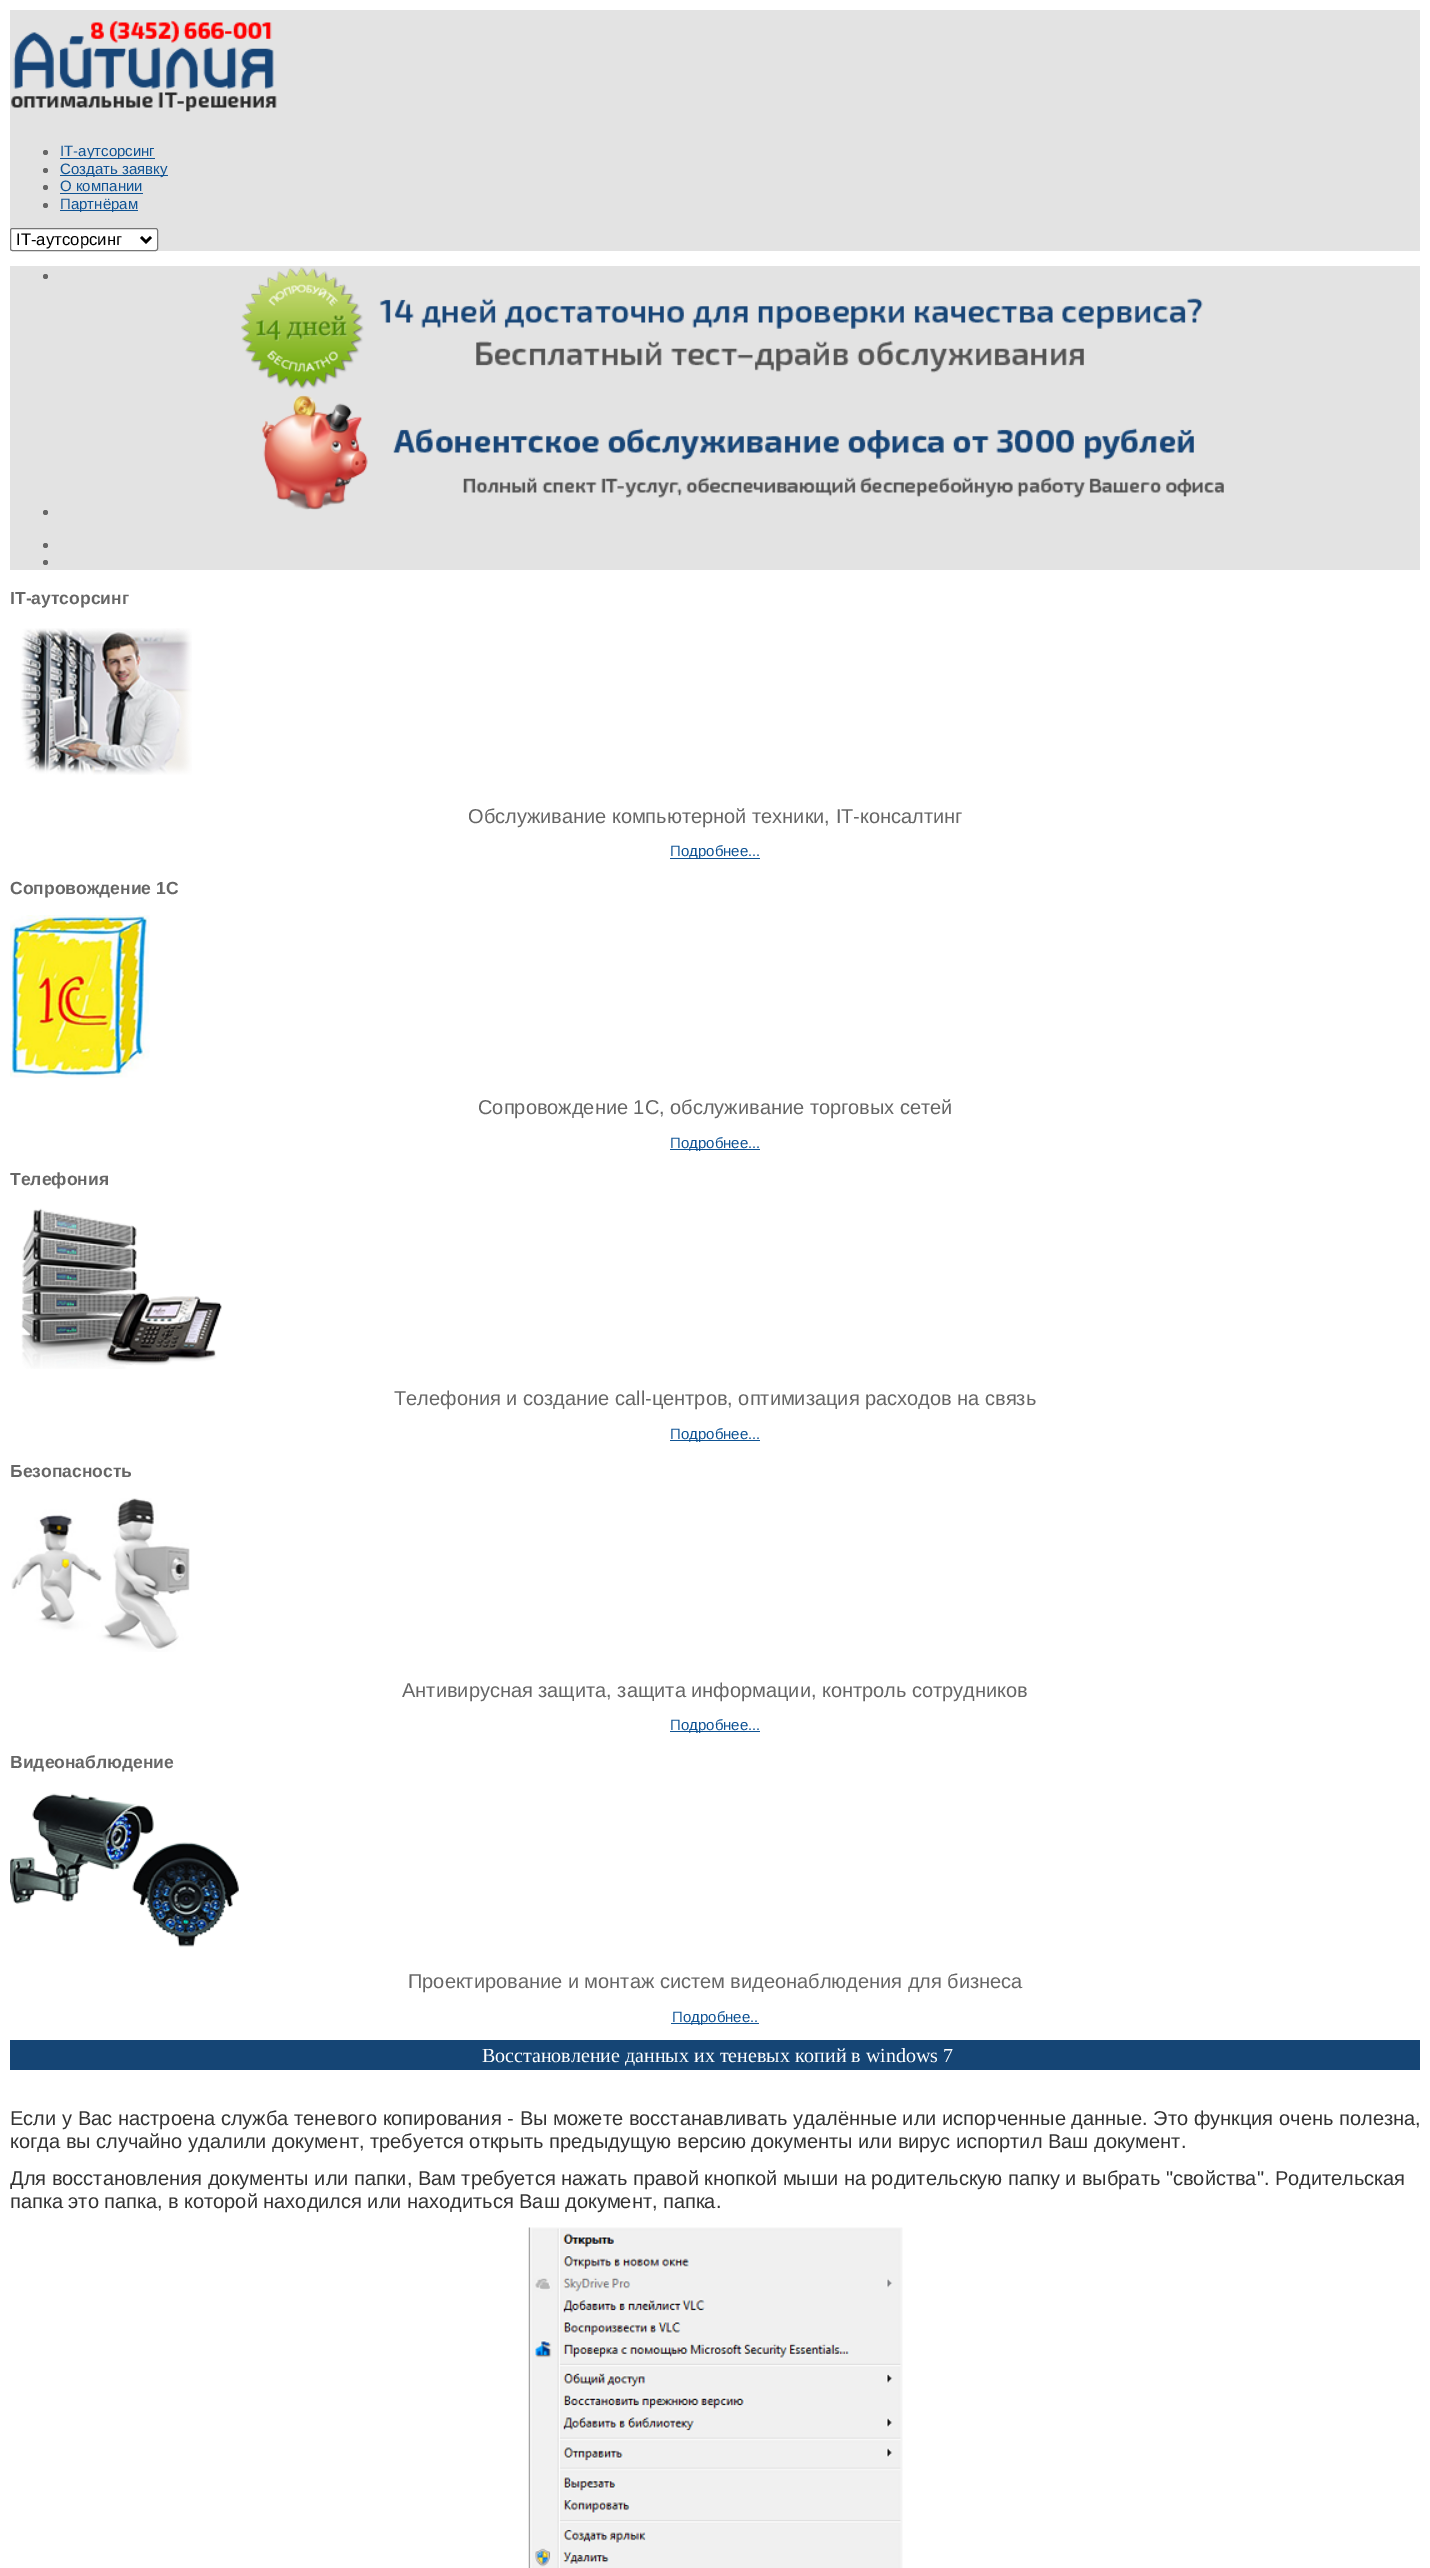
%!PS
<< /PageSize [1430 2568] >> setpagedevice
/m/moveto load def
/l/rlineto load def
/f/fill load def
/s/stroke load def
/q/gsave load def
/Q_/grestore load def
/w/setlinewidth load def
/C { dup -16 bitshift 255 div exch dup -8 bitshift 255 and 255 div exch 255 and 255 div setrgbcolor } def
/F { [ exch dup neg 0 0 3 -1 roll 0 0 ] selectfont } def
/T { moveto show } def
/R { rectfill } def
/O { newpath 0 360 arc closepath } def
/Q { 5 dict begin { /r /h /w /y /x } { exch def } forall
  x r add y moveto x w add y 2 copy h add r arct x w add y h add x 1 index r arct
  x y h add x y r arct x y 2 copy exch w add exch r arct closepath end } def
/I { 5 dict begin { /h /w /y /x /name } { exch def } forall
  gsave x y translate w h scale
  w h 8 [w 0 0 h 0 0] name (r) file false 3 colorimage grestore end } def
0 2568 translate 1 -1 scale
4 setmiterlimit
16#FFFFFF C
0 0 1430 2568 R
16#E3E3E3 C
10 10 1410 241 R
(1.rgb) 11 20 266 92 I
16#666666 C
45.5 152.5 2.5 O f
16#0F5394 C
60 158 95 1 R
/LiberationSans-Regular 15 F
(IT-аутсорсинг) 60 156 T
16#666666 C
45.5 170.5 2.5 O f
16#0F5394 C
60 175 108 1 R
(Создать заявку) 60 174 T
16#666666 C
45.5 187.5 2.5 O f
16#0F5394 C
(О компании) 60 191 T
60 193 83 1 R
16#666666 C
45.5 205.5 2.5 O f
16#0F5394 C
60 210 78 1 R
(Партнёрам) 60 209 T
16#FFFFFF C
10.5 228.5 147 22 2 Q q f Q_
16#767676 C
s
16#000000 C
2.5 w
141 237 m 5 5 l 5 -5 l s
/LiberationSans-Regular 16.75 F
(IT-аутсорсинг) 16 245 T
16#E3E3E3 C
10 266 1410 304 R
16#666666 C
45.5 276.5 2.5 O f
(2.rgb) 241 267 962 122 I
(3.rgb) 261 395 963 115 I
45.5 512.5 2.5 O f
45.5 545.5 2.5 O f
45.5 562.5 2.5 O f
/LiberationSans-Bold 17.5 F
(IT-аутсорсинг) 10 604 T
(4.rgb) 20 628 172 147 I
/LiberationSans-Regular 20 F
(Обслуживание компьютерной техники, IT-консалтинг) 468 823 T
16#0F5394 C
670 858 90 1 R
/LiberationSans-Regular 15 F
(Подробнее...) 670 856 T
/LiberationSans-Bold 17.5 F
16#666666 C
(Сопровождение 1С) 10 894 T
(5.rgb) 10 915 140 163 I
/LiberationSans-Regular 20 F
(Сопровождение 1С, обслуживание торговых сетей) 478 1114 T
16#0F5394 C
670 1149 90 1 R
/LiberationSans-Regular 15 F
(Подробнее...) 670 1148 T
/LiberationSans-Bold 17.5 F
16#666666 C
(Телефония) 10 1185 T
(6.rgb) 21 1208 201 161 I
/LiberationSans-Regular 20 F
(Телефония и создание call-центров, оптимизация расходов на связь) 394 1405 T
16#0F5394 C
670 1440 90 1 R
/LiberationSans-Regular 15 F
(Подробнее...) 670 1439 T
/LiberationSans-Bold 17.5 F
16#666666 C
(Безопасность) 10 1477 T
(7.rgb) 11 1498 179 154 I
/LiberationSans-Regular 20 F
(Антивирусная защита, защита информации, контроль сотрудников) 402 1697 T
16#0F5394 C
670 1731 90 1 R
/LiberationSans-Regular 15 F
(Подробнее...) 670 1730 T
/LiberationSans-Bold 17.5 F
16#666666 C
(Видеонаблюдение) 10 1768 T
(8.rgb) 10 1793 229 154 I
/LiberationSans-Regular 20 F
(Проектирование и монтаж систем видеонаблюдения для бизнеса) 408 1988 T
16#0F5394 C
671 2023 88 1 R
/LiberationSans-Regular 15 F
(Подробнее..) 672 2022 T
16#154575 C
10 2040 1410 30 R
/LiberationSerif-Regular 20 F
16#FFFFFF C
(Восстановление данных их теневых копий в windows 7) 482 2062 T
/LiberationSans-Regular 20 F
16#333333 C
10 2125 m .25 0 32 (Если у Вас настроена служба теневого копирования - Вы можете восстанавливать удалённые или испорченные данные. Это функция очень полезна,) widthshow
(когда вы случайно удалили документ, требуется открыть предыдущую версию документы или вирус испортил Ваш документ.) 10 2148 T
(Для восстановления документы или папки, Вам требуется нажать правой кнопкой мыши на родительскую папку и выбрать "свойства". Родительская) 10 2185 T
(папка это папка, в которой находился или находиться Ваш документ, папка.) 10 2208 T
(9.rgb) 528 2227 375 341 I
showpage
